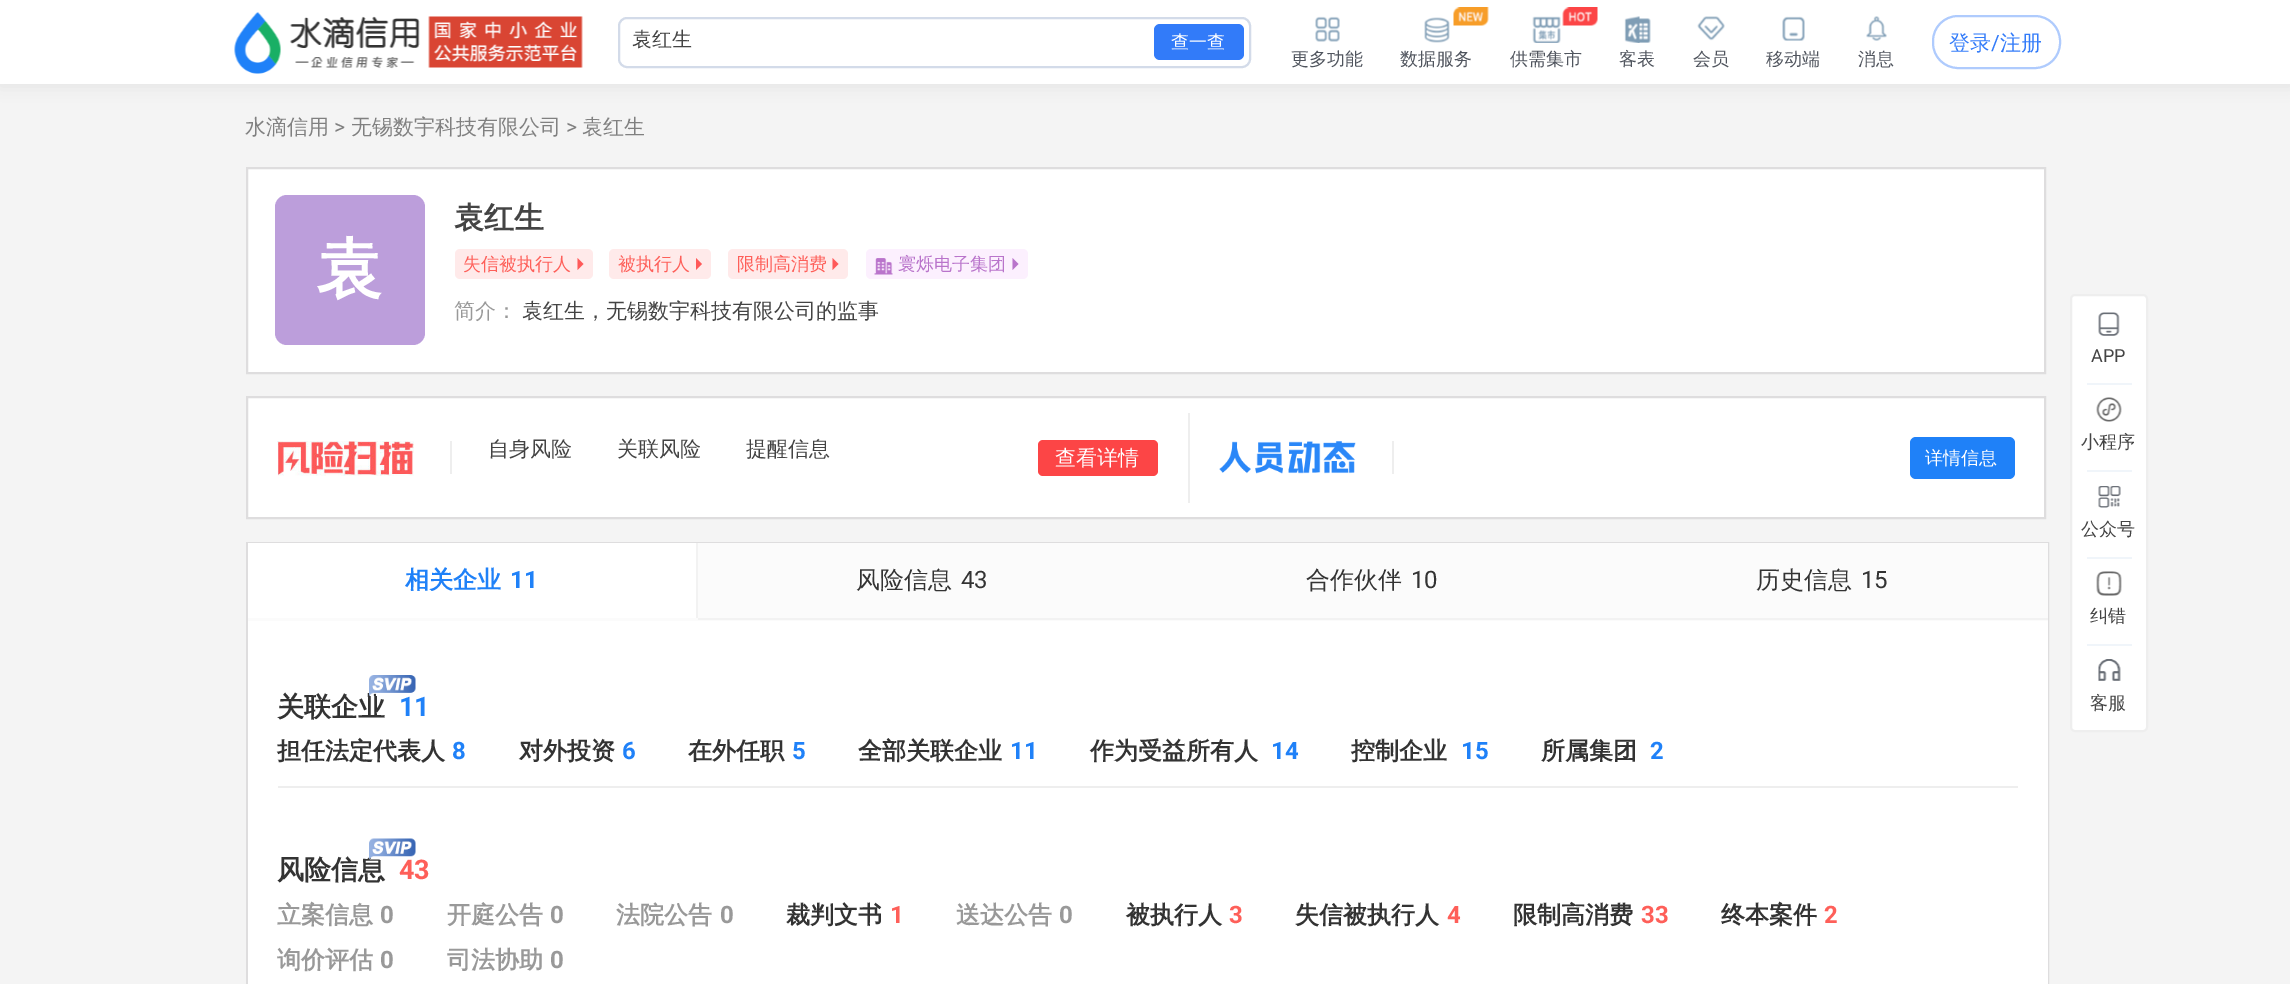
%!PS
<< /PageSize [2290 984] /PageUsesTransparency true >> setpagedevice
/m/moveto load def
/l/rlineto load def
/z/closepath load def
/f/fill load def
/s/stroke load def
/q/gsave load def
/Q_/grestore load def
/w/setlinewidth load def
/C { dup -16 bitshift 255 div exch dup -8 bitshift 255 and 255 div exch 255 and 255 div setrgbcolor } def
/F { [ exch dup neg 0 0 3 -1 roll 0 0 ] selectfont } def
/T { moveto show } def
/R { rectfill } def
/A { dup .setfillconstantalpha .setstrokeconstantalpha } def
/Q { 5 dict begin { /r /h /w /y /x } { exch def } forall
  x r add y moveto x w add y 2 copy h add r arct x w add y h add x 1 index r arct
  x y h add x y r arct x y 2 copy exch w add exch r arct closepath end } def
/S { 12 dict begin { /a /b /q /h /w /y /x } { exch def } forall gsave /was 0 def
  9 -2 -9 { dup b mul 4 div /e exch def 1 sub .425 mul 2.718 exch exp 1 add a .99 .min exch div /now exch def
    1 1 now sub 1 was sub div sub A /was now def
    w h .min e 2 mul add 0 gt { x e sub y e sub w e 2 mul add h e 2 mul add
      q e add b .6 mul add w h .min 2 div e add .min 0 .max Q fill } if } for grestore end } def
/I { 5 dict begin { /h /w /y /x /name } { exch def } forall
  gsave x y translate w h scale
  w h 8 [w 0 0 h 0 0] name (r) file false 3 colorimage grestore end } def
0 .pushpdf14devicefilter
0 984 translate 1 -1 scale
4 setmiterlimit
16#F4F4F4 C
0 0 2290 984 R
16#A1A1A1 C
0 2 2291 84 0 7.5 .2 S
16#FFFFFF C
0 0 2290 84 R
(1.rgb) 234 12 186 62 I
(2.rgb) 428 16 155 52 I
16#D3DBE9 C
2 w
619 18 631 49 8 Q s
/WenQuanYiZenHei-Medium 20 F
16#444444 C
(袁红生) 632 46 T
16#327BF9 C
1154 24 90 36 6 Q f
/WenQuanYiZenHei-Medium 18 F
16#FFFFFF C
(查一查) 1171 48 T
16#AFCBFD C
1933 16 127 52 25 Q s
/WenQuanYiZenHei-Medium 21 F
16#327BF9 C
(登录) 1949 50 T
/Roboto-Regular 21 F
(/) 1991 50 T
/WenQuanYiZenHei-Medium 21 F
(注册) 2000 50 T
(3.rgb) 1315 16 25 26 I
/WenQuanYiZenHei-Medium 18 F
16#50555E C
(更多功能) 1291 65 T
(4.rgb) 1424 17 26 26 I
(5.rgb) 1453 7 36 19 I
(数据服务) 1400 65 T
(6.rgb) 1532 16 29 27 I
(7.rgb) 1562 7 36 19 I
(供需集市) 1510 65 T
(8.rgb) 1624 16 27 27 I
(客表) 1619 65 T
(9.rgb) 1697 16 28 25 I
(会员) 1693 65 T
(10.rgb) 1782 16 23 25 I
(移动端) 1766 65 T
(11.rgb) 1866 16 21 25 I
(消息) 1858 65 T
/WenQuanYiZenHei-Medium 21 F
16#808080 C
(水滴信用) 245 134 T
/Roboto-Regular 21 F
(>) 334 134 T
/WenQuanYiZenHei-Medium 21 F
(无锡数宇科技有限公司) 351 134 T
/Roboto-Regular 21 F
(>) 566 134 T
/WenQuanYiZenHei-Medium 21 F
(袁红生) 582 134 T
16#FFFFFF C
247 168 m 1798 0 l 0 205 l -1798 0 l z q f Q_
16#DEDDDE C
s
16#BC9EDB C
275 195 150 150 12 Q f
/WenQuanYiZenHei-Bold 66 F
16#FFFFFF C
(袁) 316 292 T
/WenQuanYiZenHei-Bold 30 F
16#444444 C
(袁红生) 454 228 T
16#FFEAEA C
455 249 138 30 5 Q f
/WenQuanYiZenHei-Medium 18 F
16#FE5F59 C
(失信被执行人) 463 270 T
16#FF5959 C
577.5 270 m 0 -12 l 6 6 l z f
16#FFEAEA C
609 249 102 30 5 Q f
16#FE5F59 C
(被执行人) 618 270 T
16#FF5959 C
696 270 m 0 -12 l 6 6 l z f
16#FFEAEA C
728 249 120 30 5 Q f
16#FE5F59 C
(限制高消费) 737 270 T
16#FF5959 C
832.5 270 m 0 -12 l 6 6 l z f
16#FCF0FE C
866 249 162 30 5 Q f
(12.rgb) 874 258 19 17 I
16#B974CB C
(寰烁电子集团) 898 270 T
1012.5 270 m 0 -12 l 6 6 l z f
/WenQuanYiZenHei-Medium 21 F
16#999999 C
(简介：) 454 318 T
16#444444 C
(袁红生，无锡数宇科技有限公司的监事) 522 318 T
16#FFFFFF C
247 397 m 1798 0 l 0 121 l -1798 0 l z q f Q_
16#DEDDDE C
s
16#EEEEEE C
450 441 2 33 R
(13.rgb) 277 441 137 35 I
16#444444 C
(自身风险) 488 456 T
(关联风险) 617 456 T
(提醒信息) 746 456 T
16#FC4546 C
1038 440 120 36 5 Q f
16#FFFFFF C
(查看详情) 1055 465 T
16#EEEEEE C
1188 413 2 90 R
1392 441 2 33 R
(14.rgb) 1219 441 137 33 I
16#1F81F8 C
1910 437 105 42 6 Q f
/WenQuanYiZenHei-Medium 18 F
16#FFFFFF C
(详情信息) 1925 464 T
16#DEDDDE C
247 543 1801 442 rectstroke
16#FBFBFB C
248 543 1800 78 R
16#FFFFFF C
248 543 448 75 R
16#F2F2F2 C
696 543 2 75 R
/WenQuanYiZenHei-Bold 24 F
16#1F81F8 C
(相关企业) 405 588 T
/Roboto-Bold 24 F
(11) 510 588 T
16#F2F2F2 C
698 618 1350 2 R
/WenQuanYiZenHei-Medium 24 F
16#333333 C
(风险信息) 856 588 T
/Roboto-Regular 24 F
(43) 961 588 T
/WenQuanYiZenHei-Medium 24 F
(合作伙伴) 1306 588 T
/Roboto-Regular 24 F
(10) 1411 588 T
/WenQuanYiZenHei-Medium 24 F
(历史信息) 1756 588 T
/Roboto-Regular 24 F
(15) 1861 588 T
16#FFFFFF C
248 621 1800 363 R
/WenQuanYiZenHei-Bold 27 F
16#333333 C
(关联企业) 277 716 T
(15.rgb) 369 675 47 21 I
/Roboto-Bold 27 F
16#1F81F8 C
(11) 399 716 T
/WenQuanYiZenHei-Bold 24 F
16#333333 C
(担任法定代表人) 277 759 T
/Roboto-Bold 24 F
16#1F81F8 C
(8) 452 759 T
/WenQuanYiZenHei-Bold 24 F
16#333333 C
(对外投资) 519 759 T
/Roboto-Bold 24 F
16#1F81F8 C
(6) 622 759 T
/WenQuanYiZenHei-Bold 24 F
16#333333 C
(在外任职) 688 759 T
/Roboto-Bold 24 F
16#1F81F8 C
(5) 792 759 T
/WenQuanYiZenHei-Bold 24 F
16#333333 C
(全部关联企业) 858 759 T
/Roboto-Bold 24 F
16#1F81F8 C
(11) 1010 759 T
/WenQuanYiZenHei-Bold 24 F
16#333333 C
(作为受益所有人) 1090 759 T
/Roboto-Bold 24 F
16#1F81F8 C
(14) 1271 759 T
/WenQuanYiZenHei-Bold 24 F
16#333333 C
(控制企业) 1351 759 T
/Roboto-Bold 24 F
16#1F81F8 C
(15) 1461 759 T
/WenQuanYiZenHei-Bold 24 F
16#333333 C
(所属集团) 1541 759 T
/Roboto-Bold 24 F
16#1F81F8 C
(2) 1650 759 T
16#EEEEEE C
278 786 1740 2 R
/WenQuanYiZenHei-Bold 27 F
16#333333 C
(风险信息) 277 879 T
/Roboto-Bold 27 F
16#FE5F59 C
(43) 399 879 T
(16.rgb) 369 838 47 22 I
/WenQuanYiZenHei-Bold 24 F
16#999999 C
(立案信息) 277 923 T
/Roboto-Bold 24 F
(0) 380 923 T
/WenQuanYiZenHei-Bold 24 F
(开庭公告) 447 923 T
/Roboto-Bold 24 F
(0) 550 923 T
/WenQuanYiZenHei-Bold 24 F
(法院公告) 616 923 T
/Roboto-Bold 24 F
(0) 720 923 T
/WenQuanYiZenHei-Bold 24 F
16#333333 C
(裁判文书) 786 923 T
/Roboto-Bold 24 F
16#FE5F59 C
(1) 890 923 T
/WenQuanYiZenHei-Bold 24 F
16#999999 C
(送达公告) 956 923 T
/Roboto-Bold 24 F
(0) 1059 923 T
/WenQuanYiZenHei-Bold 24 F
16#333333 C
(被执行人) 1126 923 T
/Roboto-Bold 24 F
16#FE5F59 C
(3) 1229 923 T
/WenQuanYiZenHei-Bold 24 F
16#333333 C
(失信被执行人) 1295 923 T
/Roboto-Bold 24 F
16#FE5F59 C
(4) 1447 923 T
/WenQuanYiZenHei-Bold 24 F
16#333333 C
(限制高消费) 1513 923 T
/Roboto-Bold 24 F
16#FE5F59 C
(33) 1641 923 T
/WenQuanYiZenHei-Bold 24 F
16#333333 C
(终本案件) 1721 923 T
/Roboto-Bold 24 F
16#FE5F59 C
(2) 1824 923 T
/WenQuanYiZenHei-Bold 24 F
16#999999 C
(询价评估) 277 968 T
/Roboto-Bold 24 F
(0) 380 968 T
/WenQuanYiZenHei-Bold 24 F
(司法协助) 447 968 T
/Roboto-Bold 24 F
(0) 550 968 T
16#FFFFFF C
2071 295 76 436 4 Q q f Q_
16#EEEEEE C
s
(17.rgb) 2098 312 22 24 I
/Roboto-Regular 18 F
16#444444 C
(APP) 2091 362 T
(18.rgb) 2096 397 26 25 I
16#F0F5FA C
2087 383 45 2 R
/WenQuanYiZenHei-Medium 18 F
16#444444 C
(小程序) 2081 448 T
(19.rgb) 2098 486 23 22 I
16#F0F5FA C
2087 470 45 2 R
16#444444 C
(公众号) 2081 535 T
(20.rgb) 2096 571 26 25 I
16#F0F5FA C
2087 557 45 2 R
16#444444 C
(纠错) 2090 622 T
(21.rgb) 2098 659 23 22 I
16#F0F5FA C
2087 644 45 2 R
16#444444 C
(客服) 2090 709 T
.poppdf14devicefilter showpage
